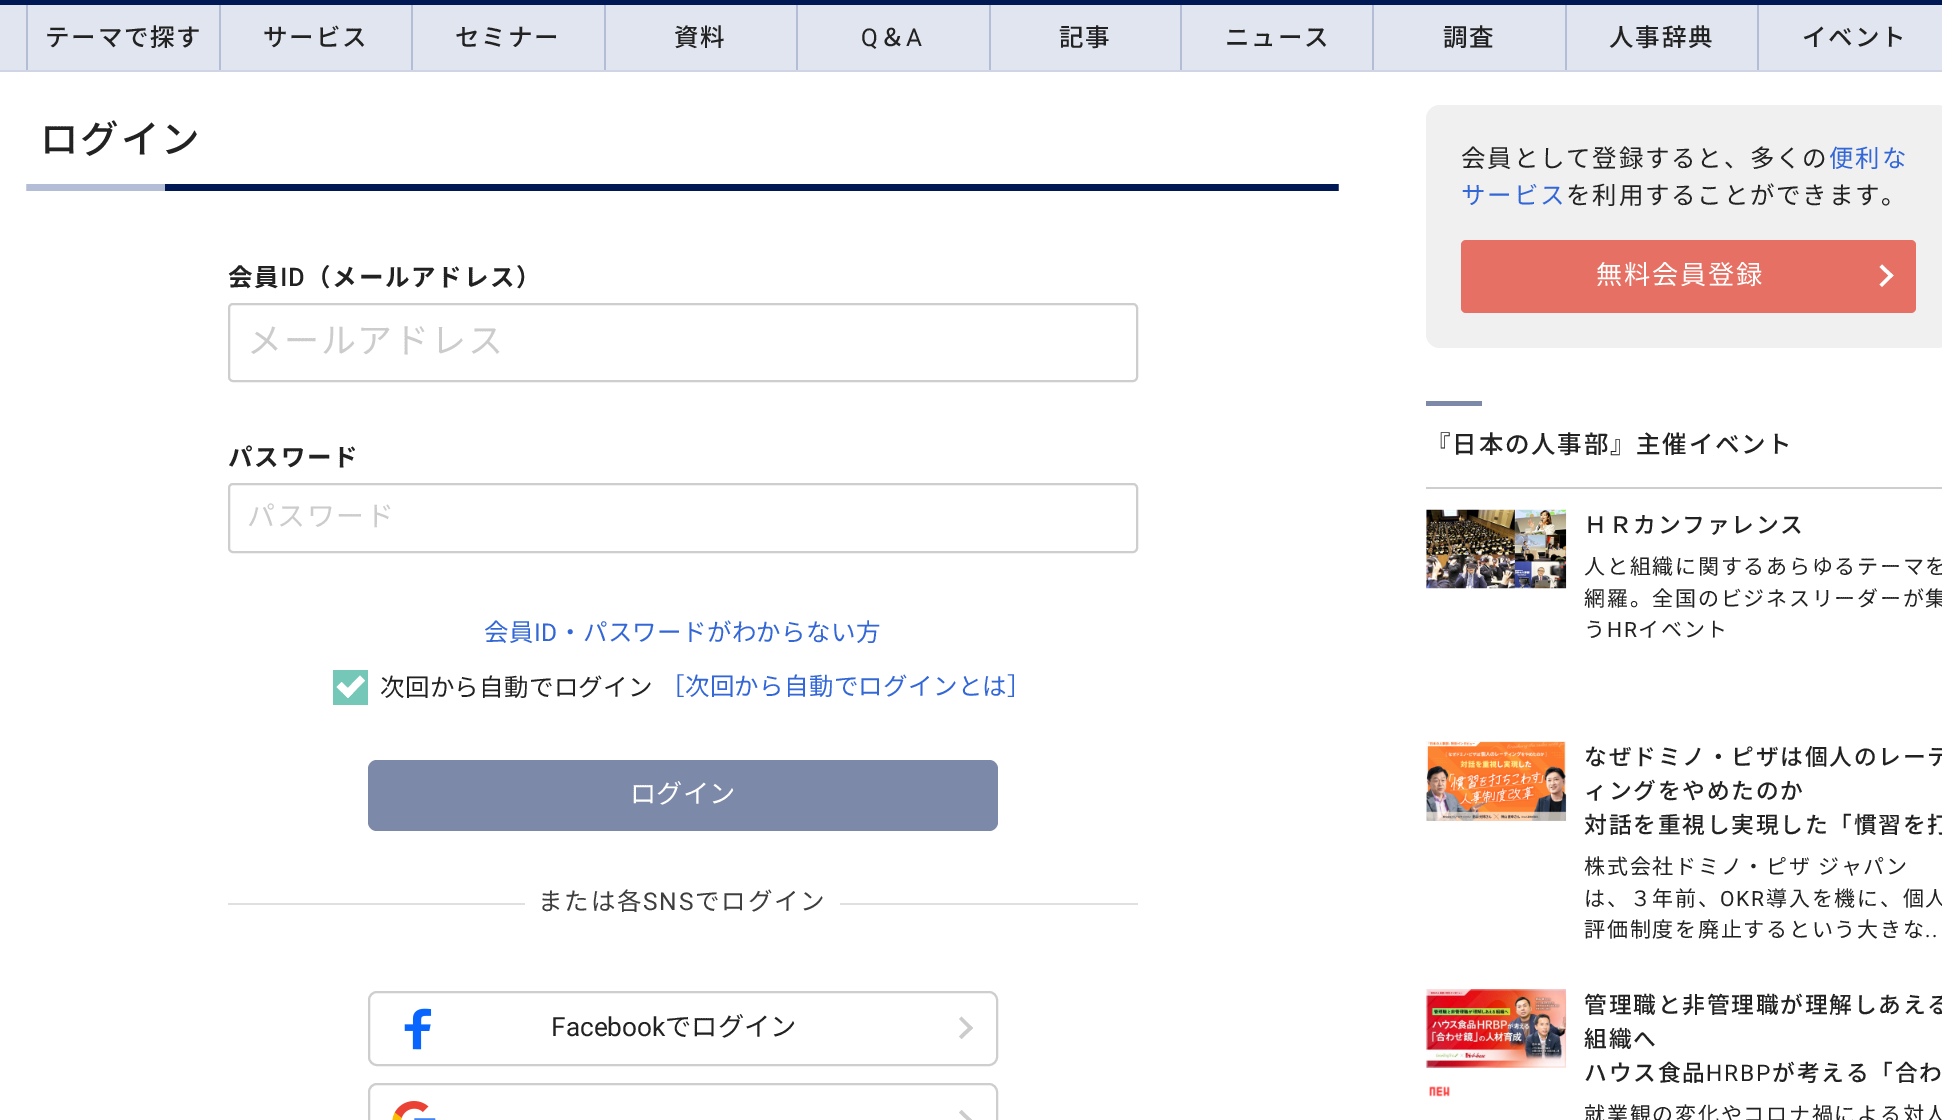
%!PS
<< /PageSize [1942 1120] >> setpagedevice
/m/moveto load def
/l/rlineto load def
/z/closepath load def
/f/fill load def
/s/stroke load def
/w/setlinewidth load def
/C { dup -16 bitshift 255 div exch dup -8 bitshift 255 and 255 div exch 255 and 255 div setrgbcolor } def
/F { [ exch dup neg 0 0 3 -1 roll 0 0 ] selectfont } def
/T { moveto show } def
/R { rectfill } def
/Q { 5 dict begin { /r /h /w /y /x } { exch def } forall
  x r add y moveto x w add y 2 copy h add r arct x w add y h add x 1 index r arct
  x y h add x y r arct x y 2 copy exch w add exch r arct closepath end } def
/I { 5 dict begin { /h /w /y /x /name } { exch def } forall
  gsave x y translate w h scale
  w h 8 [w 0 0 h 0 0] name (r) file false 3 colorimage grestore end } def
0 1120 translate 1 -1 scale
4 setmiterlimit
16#FFFFFF C
0 0 1942 1120 R
16#E1E5EF C
0 5 1942 65 R
16#001954 C
0 0 1942 5 R
16#CFD5E5 C
0 70 1942 2 R
16#B3BDD6 C
26 5 2 65 R
/NotoSansCJKJP-Medium 24.5 F
16#222222 C
45 46 m 1.75 0 (テーマで探す) ashow
16#B3BDD6 C
219 5 2 65 R
16#222222 C
263 46 m 1.75 0 (サービス) ashow
16#B3BDD6 C
411 5 2 65 R
16#222222 C
455 46 m 1.75 0 (セミナー) ashow
16#B3BDD6 C
604 5 2 65 R
16#222222 C
674 46 m 1.75 0 (資料) ashow
16#B3BDD6 C
796 5 2 65 R
/Roboto-Regular 24.5 F
16#222222 C
861 46 m 1.75 0 (Q) ashow
/NotoSansCJKJP-Medium 24.5 F
880 46 m 1.75 0 (＆) ashow
/Roboto-Regular 24.5 F
906 46 m 1.75 0 (A) ashow
16#B3BDD6 C
989 5 2 65 R
/NotoSansCJKJP-Medium 24.5 F
16#222222 C
1059 46 m 1.75 0 (記事) ashow
16#B3BDD6 C
1180 5 2 65 R
16#222222 C
1225 46 m 1.75 0 (ニュース) ashow
16#B3BDD6 C
1372 5 2 65 R
16#222222 C
1443 46 m 1.75 0 (調査) ashow
16#B3BDD6 C
1565 5 2 65 R
16#222222 C
1609 46 m 1.75 0 (人事辞典) ashow
16#B3BDD6 C
1757 5 2 65 R
16#222222 C
1802 46 m 1.75 0 (イベント) ashow
(1.rgb) 26 184 1313 7 I
/NotoSansCJKJP-Medium 38.5 F
40 153 m 1.75 0 (ログイン) ashow
/NotoSansCJKJP-Bold 24.5 F
228 286 m 1.75 0 (会員) ashow
/Roboto-Bold 24.5 F
280 286 m 1.75 0 (ID) ashow
/NotoSansCJKJP-Bold 24.5 F
306 286 m 1.75 0 (（メールアドレス）) ashow
16#CECECE C
2 w
229 304 908 77 4 Q s
/NotoSansCJKJP-Regular 35 F
16#CCCCCC C
247 353 m 1.75 0 (メールアドレス) ashow
/NotoSansCJKJP-Bold 24.5 F
16#222222 C
228 466 m 1.75 0 (パスワード) ashow
16#CECECE C
229 484 908 68 4 Q s
/NotoSansCJKJP-Regular 28 F
16#CCCCCC C
247 526 m 1.75 0 (パスワード) ashow
/NotoSansCJKJP-Regular 24.5 F
16#3367D6 C
484 641 m .3 0 (会員) ashow
/Roboto-Regular 24.5 F
534 641 m .3 0 (ID) ashow
/NotoSansCJKJP-Regular 24.5 F
558 641 m .3 0 (・パスワードがわからない方) ashow
16#75C7B7 C
333 670 35 35 R
16#FFFFFF C
360 675.5 m 5 5 l -17 17.5 l -5 -5 l z f
341.5 682 m 11.5 11 l -5 5 l -11.5 -11 l z f
16#222222 C
380 696 m .3 0 (次回から自動でログイン) ashow
16#3367D6 C
660 695 m .3 0 (［次回から自動でログインとは］) ashow
16#7D89A8 C
368 760 630 71 9 Q f
/NotoSansCJKJP-Regular 26.25 F
16#FFFFFF C
(ログイン) 630 803 T
16#E0E0E0 C
228 903 910 2 R
16#FFFFFF C
525 903 315 2 R
/NotoSansCJKJP-Regular 24.5 F
16#3E3E3E C
538 910 m 1.75 0 (または各) ashow
/Roboto-Regular 24.5 F
643 910 m 1.75 0 (SNS) ashow
/NotoSansCJKJP-Regular 24.5 F
695 910 m 1.75 0 (でログイン) ashow
16#CECECE C
369 992 628 73 8 Q s
(2.rgb) 404 1008 28 42 I
/Roboto-Regular 26.25 F
16#222222 C
(Facebook) 551 1036 T
/NotoSansCJKJP-Regular 26.25 F
(でログイン) 665 1036 T
16#CCCCCC C
961.5 1016.5 m 11.5 11.5 l -2.5 2.5 l -11.5 -11.5 l z f
970.5 1025.5 m 2.5 2.5 l -11.5 11 l -2.5 -2.5 l z f
16#CECECE C
369 1084 628 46 8 Q s
(3.rgb) 392 1101 44 19 I
16#CCCCCC C
961.5 1110 m 11.5 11 l -2.5 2.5 l -11.5 -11 l z f
970.5 1118.5 m 2.5 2.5 l -11.5 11 l -2.5 -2.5 l z f
16#F0F0F0 C
1426 105 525 243 14 Q f
/NotoSansCJKJP-Regular 24.5 F
16#222222 C
1461 167 m 1.75 0 (会員として登録すると、多くの) ashow
16#3367D6 C
1829 167 m 1.75 0 (便利な) ashow
1461 204 m 1.75 0 (サービス) ashow
16#222222 C
1566 204 m 1.75 0 (を利用することができます。) ashow
16#E67063 C
1461 240 455 73 5 Q f
/NotoSansCJKJP-Regular 26.25 F
16#FFFFFF C
1596 284 m 1.75 0 (無料会員登録) ashow
1882 264.5 m 11.5 11 l -2.5 2.5 l -11.5 -11 l z f
1891 273 m 2.5 2.5 l -11.5 11.5 l -2.5 -2.5 l z f
16#CECECE C
1426 487 516 2 R
16#7D89A8 C
1426 401 56 5 R
/NotoSansCJKJP-Medium 24.5 F
16#222222 C
1426 453 m 1.75 0 (『日本の人事部』主催イベント) ashow
(4.rgb) 1426 509 141 80 I
/NotoSansCJKJP-Medium 22.75 F
1584 533 m 1.75 0 (ＨＲカンファレンス) ashow
/NotoSansCJKJP-Regular 21 F
1584 574 m 1.75 0 (人と組織に関するあらゆるテーマを) ashow
1584 606 m 1.75 0 (網羅。全国のビジネスリーダーが集) ashow
1584 637 m 1.75 0 (う) ashow
/Roboto-Regular 21 F
1607 637 m 1.75 0 (HR) ashow
/NotoSansCJKJP-Regular 21 F
1638 637 m 1.75 0 (イベント) ashow
(5.rgb) 1426 741 141 80 I
/NotoSansCJKJP-Medium 22.75 F
1584 765 m 1.75 0 (なぜドミノ・ピザは個人のレーテ) ashow
1584 799 m 1.75 0 (ィングをやめたのか) ashow
1584 833 m 1.75 0 (対話を重視し実現した「慣習を打) ashow
/NotoSansCJKJP-Regular 21 F
1584 874 m 1.75 0 (株式会社ドミノ・ピザ ジャパン) ashow
1584 906 m 1.75 0 (は、３年前、) ashow
/Roboto-Regular 21 F
1720 906 m 1.75 0 (OKR) ashow
/NotoSansCJKJP-Regular 21 F
1766 906 m 1.75 0 (導入を機に、個人) ashow
1584 937 m 1.75 0 (評価制度を廃止するという大きな) ashow
/Roboto-Regular 21 F
1925 937 m 1.75 0 (..) ashow
(6.rgb) 1426 989 141 79 I
(7.rgb) 1429 1086 21 11 I
/NotoSansCJKJP-Medium 22.75 F
1584 1013 m 1.75 0 (管理職と非管理職が理解しあえる) ashow
1584 1047 m 1.75 0 (組織へ) ashow
1584 1081 m 1.75 0 (ハウス食品) ashow
/Roboto-Regular 22.75 F
1706 1081 m 1.75 0 (HRBP) ashow
/NotoSansCJKJP-Medium 22.75 F
1772 1081 m 1.75 0 (が考える「合わ) ashow
/NotoSansCJKJP-Regular 21 F
1584 1122 m 1.75 0 (就業観の変化やコロナ禍による対人) ashow
showpage
